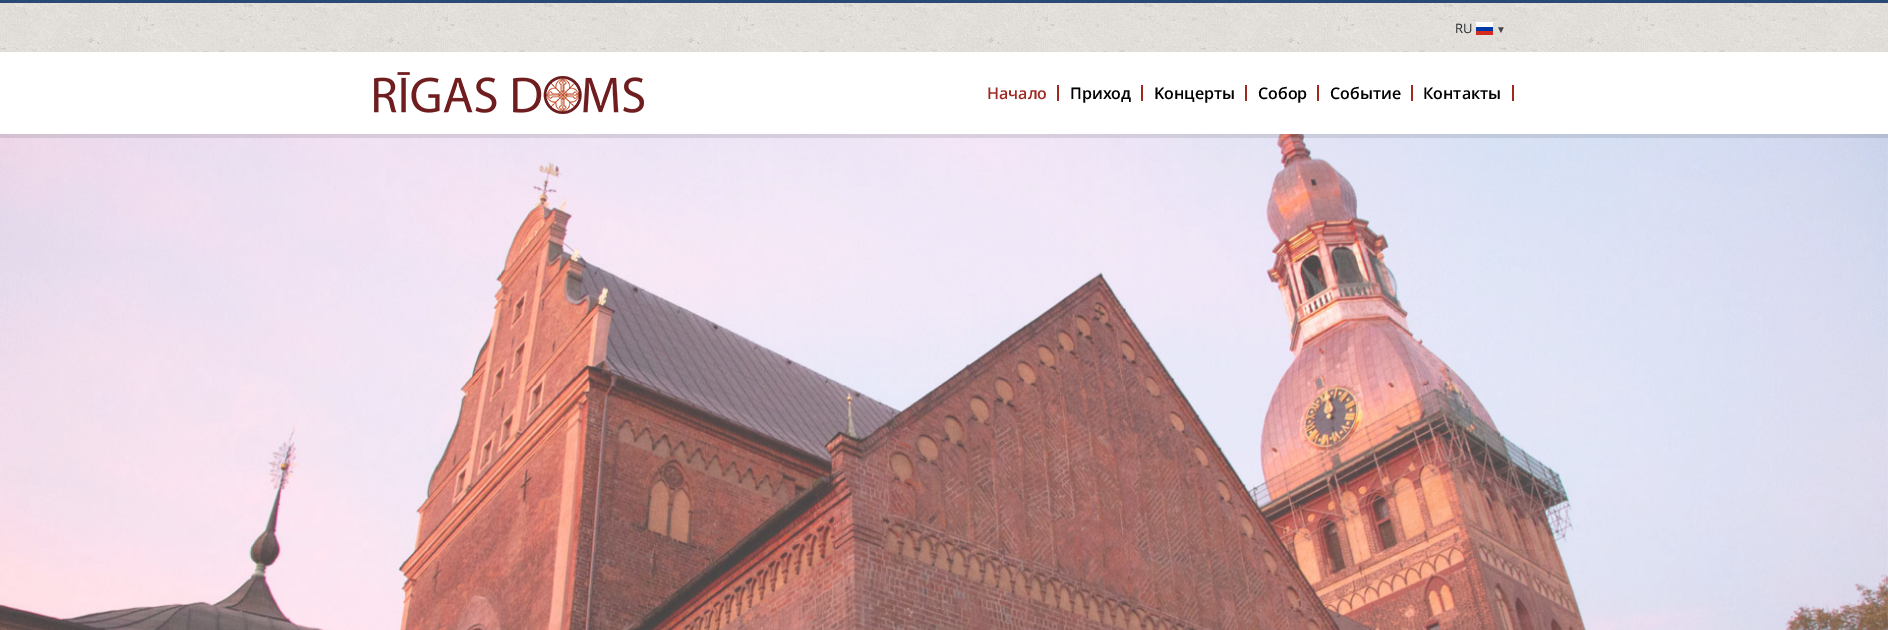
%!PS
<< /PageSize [1888 630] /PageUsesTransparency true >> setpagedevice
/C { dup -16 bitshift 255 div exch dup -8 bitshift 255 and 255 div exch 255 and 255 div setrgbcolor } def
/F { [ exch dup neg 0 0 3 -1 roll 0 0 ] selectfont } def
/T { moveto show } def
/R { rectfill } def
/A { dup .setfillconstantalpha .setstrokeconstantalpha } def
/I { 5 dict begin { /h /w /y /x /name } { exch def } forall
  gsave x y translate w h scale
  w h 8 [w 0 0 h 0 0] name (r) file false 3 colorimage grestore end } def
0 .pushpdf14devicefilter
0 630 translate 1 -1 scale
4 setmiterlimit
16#FFFFFF C
0 0 1888 630 R
16#294A74 C
0 0 1888 3 R
(1.rgb) 0 3 1888 49 I
/OpenSans-Regular 13 F
16#212529 C
(RU) 1455 33 T
16#FFFFFF C
1476 22 17 5 R
16#0039A6 C
1476 27 17 4 R
16#D52B1E C
1476 31 17 4 R
/LiberationSans-Regular 10 F
16#444444 C
(▼) 1496 33 T
(3.rgb) 0 134 1888 496 I
0.1 A
16#000000 C
0 134 1888 4 R
1 A
(2.rgb) 374 72 270 42 I
16#9E2921 C
1057 85 2 16 R
/OpenSans-SemiBold 16 F
(Hачало) 987 99 T
1141 85 2 16 R
16#000000 C
(Приход) 1070 99 T
16#9E2921 C
1245 85 2 16 R
16#000000 C
(Kонцерты) 1154 99 T
16#9E2921 C
1317 85 2 16 R
16#000000 C
(Cобор) 1258 99 T
16#9E2921 C
1411 85 2 16 R
16#000000 C
(Событие) 1330 99 T
16#9E2921 C
1512 85 2 16 R
16#000000 C
(Контакты) 1423 99 T
.poppdf14devicefilter showpage
